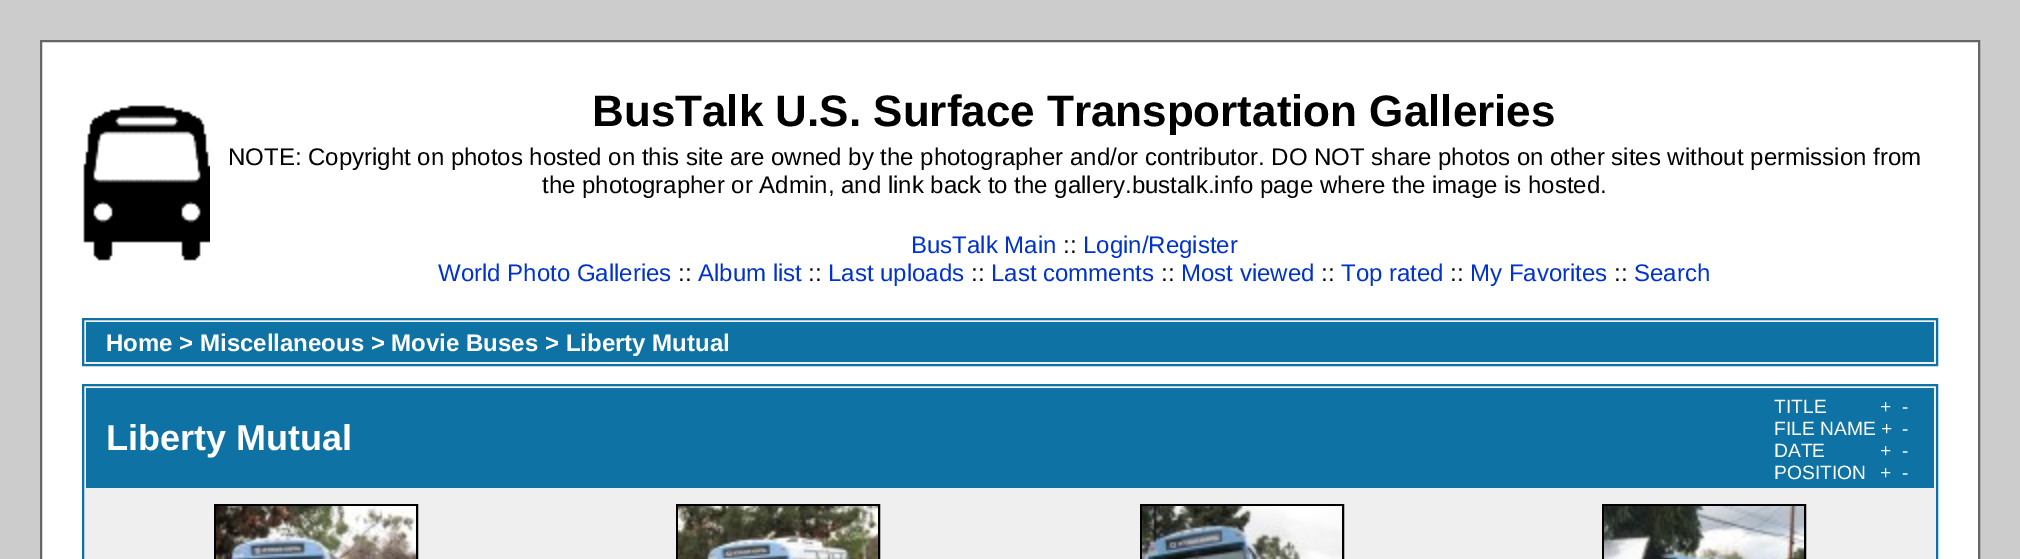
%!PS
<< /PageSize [2020 559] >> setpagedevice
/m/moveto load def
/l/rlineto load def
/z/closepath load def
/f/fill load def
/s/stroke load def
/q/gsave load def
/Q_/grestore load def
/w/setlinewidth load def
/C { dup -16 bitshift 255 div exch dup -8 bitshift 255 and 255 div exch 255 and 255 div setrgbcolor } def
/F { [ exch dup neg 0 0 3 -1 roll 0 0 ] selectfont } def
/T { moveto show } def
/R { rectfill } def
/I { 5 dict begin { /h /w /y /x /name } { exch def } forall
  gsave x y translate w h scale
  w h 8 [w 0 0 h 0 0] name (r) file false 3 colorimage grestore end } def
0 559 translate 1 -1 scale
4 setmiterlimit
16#CCCCCC C
0 0 2020 559 R
16#FFFFFF C
41 41 m 1938 0 l 0 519 l -1938 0 l z q f Q_
16#666666 C
2 w
s
(1.rgb) 83 105 127 156 I
/LiberationSans-Bold 44 F
16#000000 C
(BusTalk U.S. Surface Transportation Galleries) 592 126 T
/LiberationSans-Regular 24 F
(NOTE: Copyright on photos hosted on this site are owned by the photographer and/or contributor. DO NOT share photos on other sites without permission from) 228 165 T
(the photographer or Admin, and link back to the gallery.bustalk.info page where the image is hosted.) 542 193 T
16#0033CC C
(BusTalk Main) 911 253 T
16#000000 C
(::) 1063 253 T
16#0033CC C
(Login/Register) 1083 253 T
(World Photo Galleries) 438 281 T
16#000000 C
(::) 678 281 T
16#0033CC C
(Album list) 698 281 T
16#000000 C
(::) 808 281 T
16#0033CC C
(Last uploads) 828 281 T
16#000000 C
(::) 971 281 T
16#0033CC C
(Last comments) 991 281 T
16#000000 C
(::) 1161 281 T
16#0033CC C
(Most viewed) 1181 281 T
16#000000 C
(::) 1321 281 T
16#0033CC C
(Top rated) 1341 281 T
16#000000 C
(::) 1450 281 T
16#0033CC C
(My Favorites) 1470 281 T
16#000000 C
(::) 1614 281 T
16#0033CC C
(Search) 1634 281 T
16#EFEFEF C
83 319 m 1854 0 l 0 46 l -1854 0 l z q f Q_
16#0E72A4 C
s
86 322 1848 40 R
/LiberationSans-Bold 24 F
16#FFFFFF C
(Home > Miscellaneous > Movie Buses > Liberty Mutual) 106 351 T
16#EFEFEF C
83 385 m 1854 0 l 0 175 l -1854 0 l z q f Q_
16#0E72A4 C
s
86 388 1848 100 R
/LiberationSans-Bold 36 F
16#FFFFFF C
(Liberty Mutual) 106 450 T
/LiberationSans-Regular 19.25 F
(TITLE) 1774 413 T
(+) 1880 413 T
(-) 1902 413 T
(FILE NAME +) 1774 435 T
(-) 1902 435 T
(DATE) 1774 457 T
(+) 1880 457 T
(-) 1902 457 T
(POSITION) 1774 479 T
(+) 1880 479 T
(-) 1902 479 T
16#000000 C
215 505 202 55 rectstroke
(2.rgb) 216 506 200 53 I
677 505 202 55 rectstroke
(3.rgb) 678 506 200 53 I
1141 505 202 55 rectstroke
(4.rgb) 1142 506 200 53 I
1603 505 202 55 rectstroke
(5.rgb) 1604 506 200 53 I
showpage
